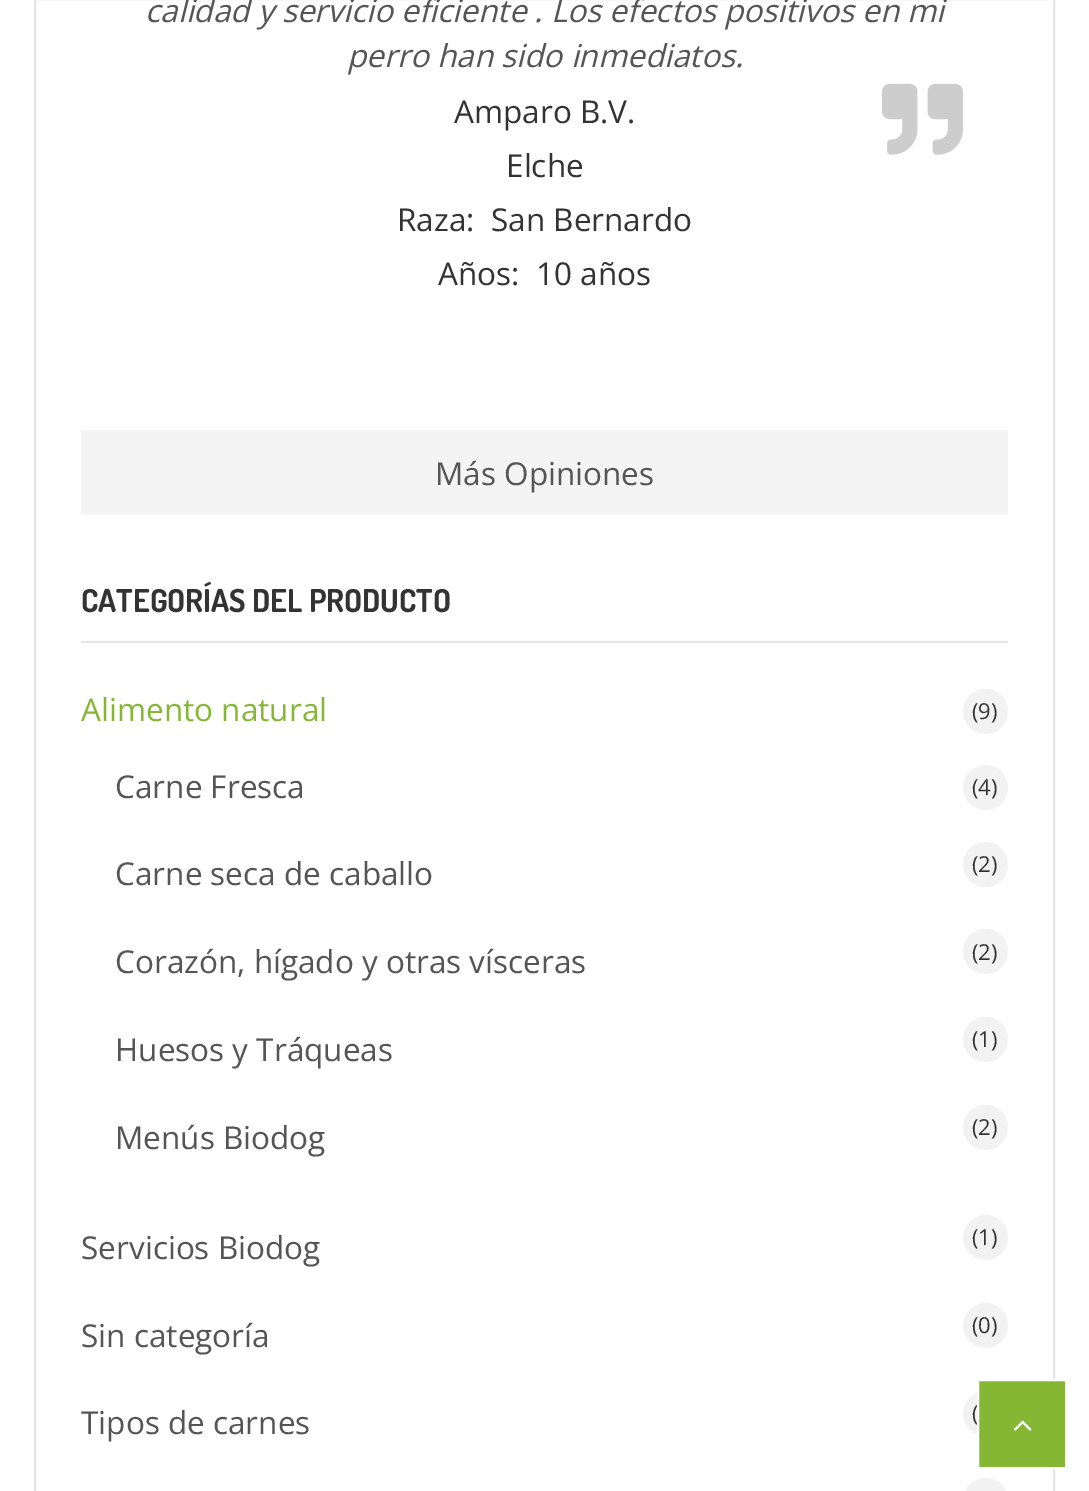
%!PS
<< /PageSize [1089 1491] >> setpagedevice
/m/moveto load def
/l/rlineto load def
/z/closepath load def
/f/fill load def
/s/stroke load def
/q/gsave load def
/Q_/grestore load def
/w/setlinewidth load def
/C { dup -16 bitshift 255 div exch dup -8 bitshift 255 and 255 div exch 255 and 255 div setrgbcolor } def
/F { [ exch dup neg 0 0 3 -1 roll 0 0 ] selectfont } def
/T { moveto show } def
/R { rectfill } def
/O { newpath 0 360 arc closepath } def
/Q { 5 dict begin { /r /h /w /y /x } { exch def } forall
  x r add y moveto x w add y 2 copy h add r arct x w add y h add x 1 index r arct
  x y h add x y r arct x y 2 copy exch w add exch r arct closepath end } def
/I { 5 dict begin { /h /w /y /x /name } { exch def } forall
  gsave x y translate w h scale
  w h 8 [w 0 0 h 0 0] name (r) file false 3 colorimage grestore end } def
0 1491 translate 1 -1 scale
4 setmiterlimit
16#FFFFFF C
0 0 1089 1491 R
16#E5E5E5 C
2 w
35 -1 1019 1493 rectstroke
/OpenSans-Italic 31.5 F
16#555555 C
(calidad y servicio eficiente . Los efectos positivos en mi) 145 22 T
(perro han sido inmediatos.) 347 67 T
(1.rgb) 882 83 81 72 I
/OpenSans-Regular 31.5 F
16#333333 C
(Amparo B.V.) 454 123 T
(Elche) 506 177 T
(Raza:) 397 231 T
(San Bernardo) 491 231 T
(Años:) 438 285 T
(10 años) 536 285 T
16#F4F4F4 C
81 430 927 85 R
16#555555 C
(Más Opiniones) 435 485 T
16#E5E5E5 C
81 641 927 2 R
/Dosis-Bold 31.5 F
16#333333 C
(CATEGORÍAS DEL PRODUCTO) 81 612 T
/OpenSans-Regular 31.5 F
16#85B734 C
(Alimento natural) 81 721 T
16#F2F2F2 C
985.5 711.5 22.5 O f
/OpenSans-Regular 22 F
16#333333 C
(\(9\)) 972 719 T
/OpenSans-Regular 31.5 F
16#555555 C
(Carne Fresca) 115 798 T
16#F2F2F2 C
985.5 787.5 22.5 O f
/OpenSans-Regular 22 F
16#333333 C
(\(4\)) 972 795 T
/OpenSans-Regular 31.5 F
16#555555 C
(Carne seca de caballo) 115 885 T
16#F2F2F2 C
985.5 864.5 22.5 O f
/OpenSans-Regular 22 F
16#333333 C
(\(2\)) 972 872 T
/OpenSans-Regular 31.5 F
16#555555 C
(Corazón, hígado y otras vísceras) 115 973 T
16#F2F2F2 C
985.5 951.5 22.5 O f
/OpenSans-Regular 22 F
16#333333 C
(\(2\)) 972 960 T
/OpenSans-Regular 31.5 F
16#555555 C
(Huesos y Tráqueas) 115 1061 T
16#F2F2F2 C
985.5 1039.5 22.5 O f
/OpenSans-Regular 22 F
16#333333 C
(\(1\)) 972 1047 T
/OpenSans-Regular 31.5 F
16#555555 C
(Menús Biodog) 115 1149 T
16#F2F2F2 C
985.5 1127.5 22.5 O f
/OpenSans-Regular 22 F
16#333333 C
(\(2\)) 972 1135 T
/OpenSans-Regular 31.5 F
16#555555 C
(Servicios Biodog) 81 1259 T
16#F2F2F2 C
985.5 1237.5 22.5 O f
/OpenSans-Regular 22 F
16#333333 C
(\(1\)) 972 1245 T
/OpenSans-Regular 31.5 F
16#555555 C
(Sin categoría) 81 1347 T
16#F2F2F2 C
985.5 1325.5 22.5 O f
/OpenSans-Regular 22 F
16#333333 C
(\(0\)) 972 1333 T
/OpenSans-Regular 31.5 F
16#555555 C
(Tipos de carnes) 81 1434 T
16#F2F2F2 C
985.5 1413.5 22.5 O f
/OpenSans-Regular 22 F
16#333333 C
(\() 972 1421 T
16#F2F2F2 C
963 1478 45 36 22.5 Q f
16#85B734 C
978 1380 m 88 0 l 0 88 l -88 0 l z q f Q_
16#FFFFFF C
s
(2.rgb) 1013 1420 19 11 I
showpage
